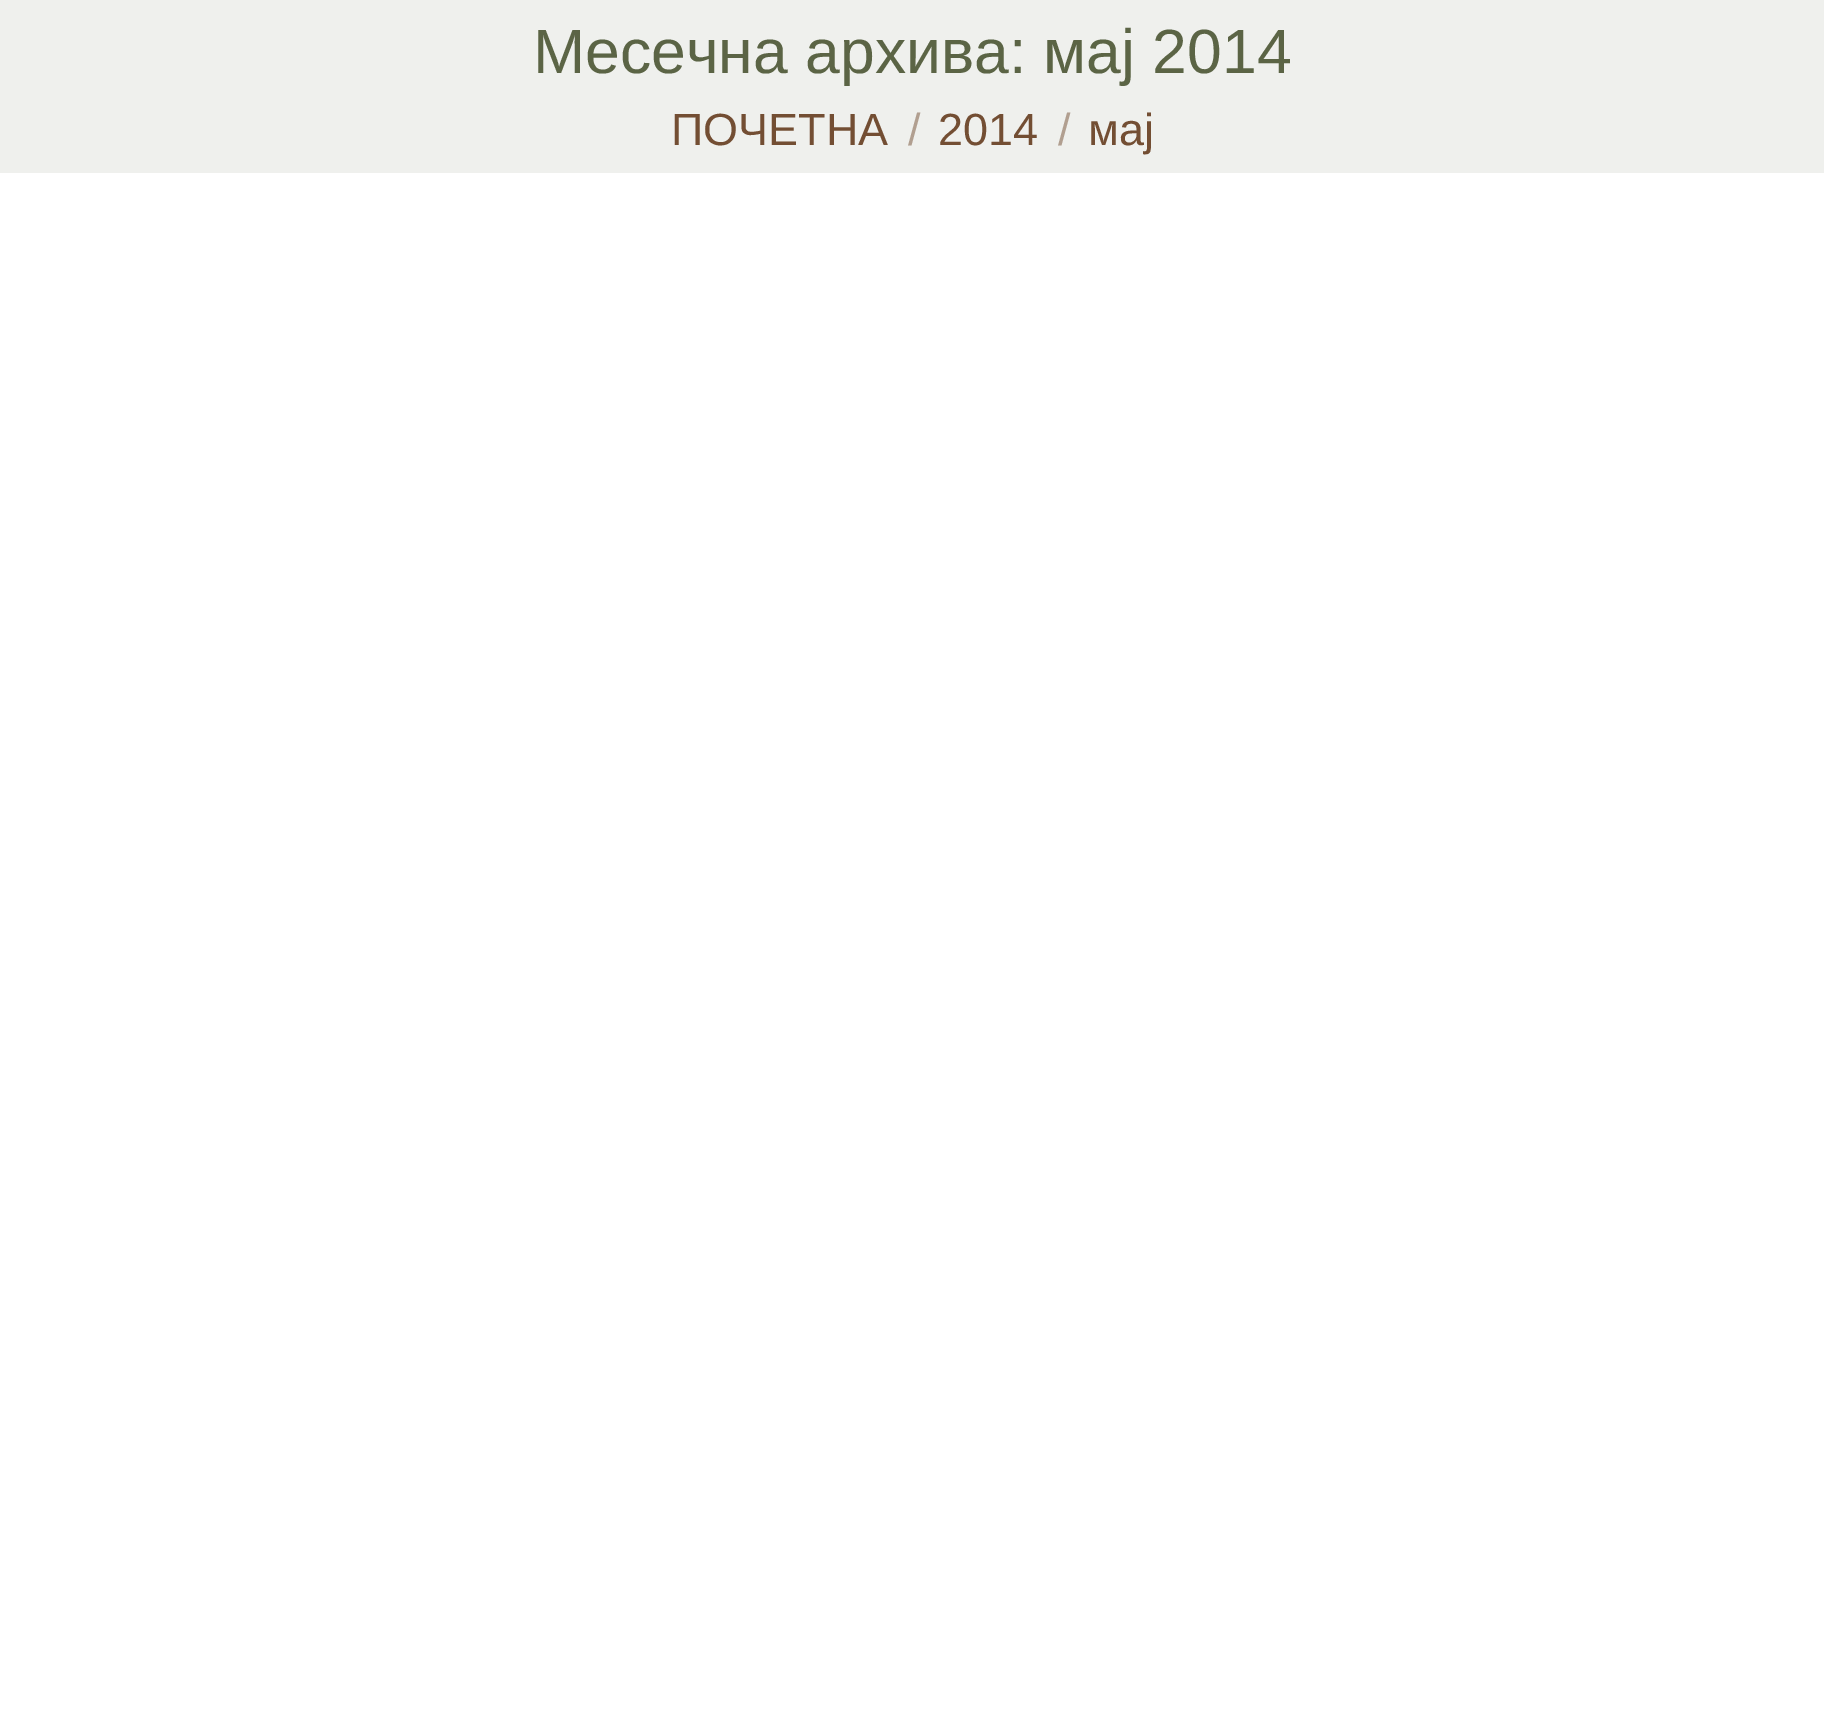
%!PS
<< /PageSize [1824 1729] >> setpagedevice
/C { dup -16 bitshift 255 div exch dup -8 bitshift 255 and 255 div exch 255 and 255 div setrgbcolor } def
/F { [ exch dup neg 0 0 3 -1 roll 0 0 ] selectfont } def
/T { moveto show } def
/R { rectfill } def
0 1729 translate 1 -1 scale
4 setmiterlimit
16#FFFFFF C
0 0 1824 1729 R
16#EFF0ED C
0 0 1824 173 R
/LiberationSans-Regular 62.5 F
16#5B6445 C
(Месечна архива: мај 2014) 533 73 T
/LiberationSans-Regular 45 F
16#734E33 C
(ПОЧЕТНА) 671 145 T
16#B19F90 C
(/) 908 145 T
16#734E33 C
(2014) 938 145 T
16#B19F90 C
(/) 1058 145 T
16#734E33 C
(мај) 1088 145 T
showpage
